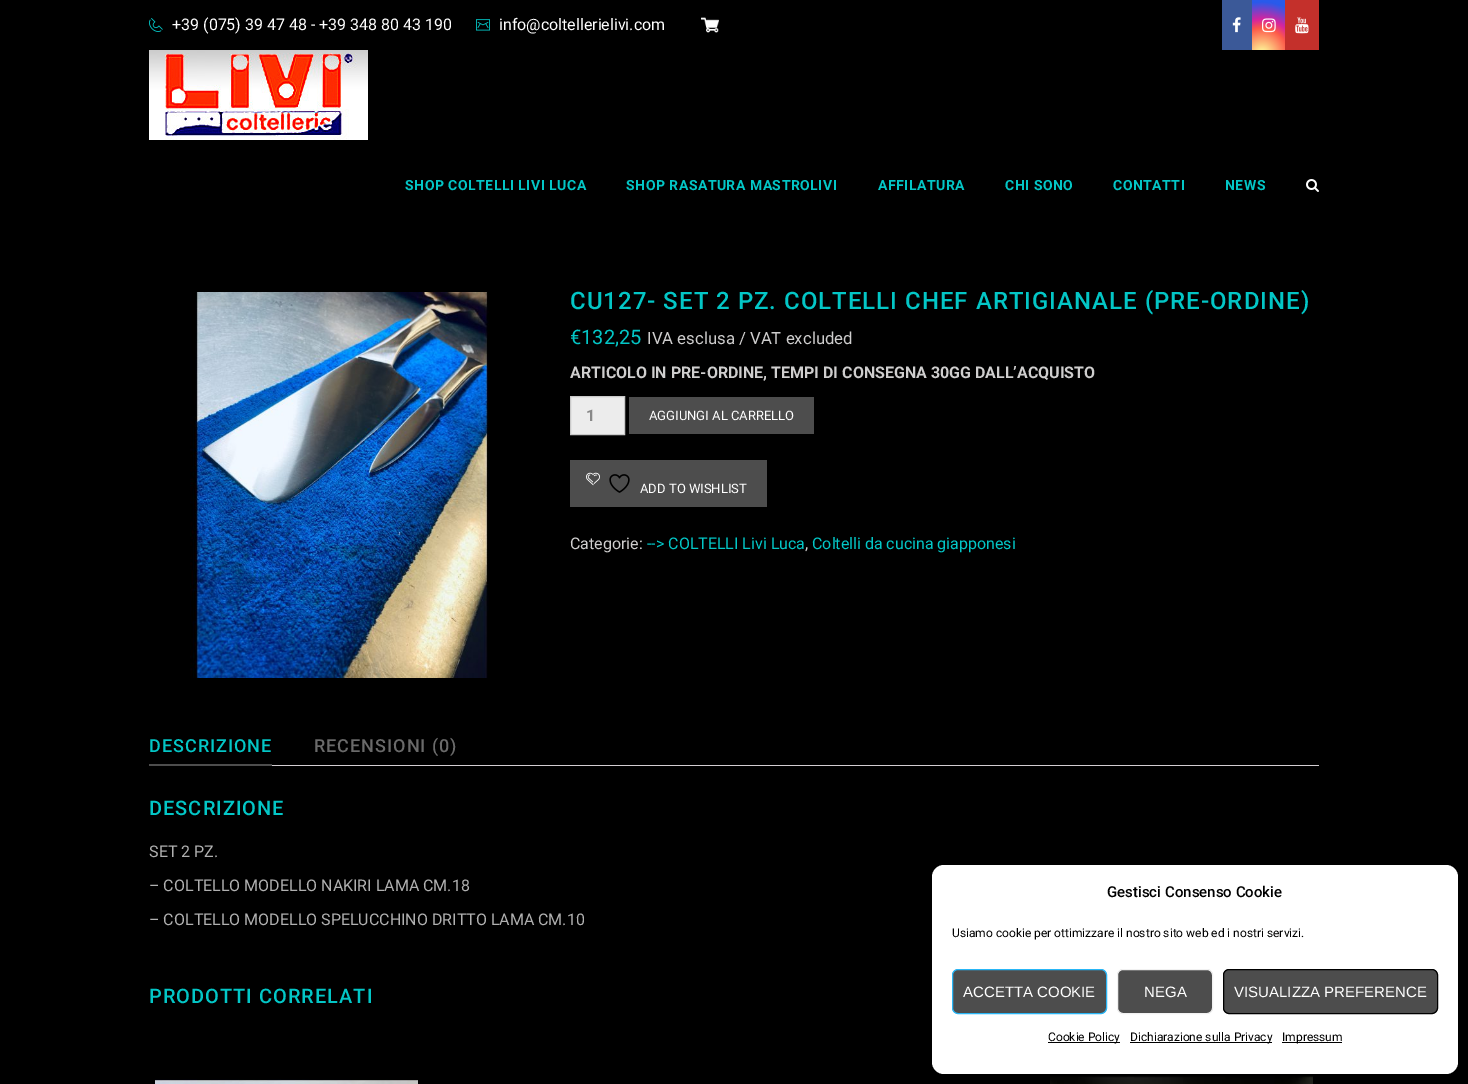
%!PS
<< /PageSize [1468 1084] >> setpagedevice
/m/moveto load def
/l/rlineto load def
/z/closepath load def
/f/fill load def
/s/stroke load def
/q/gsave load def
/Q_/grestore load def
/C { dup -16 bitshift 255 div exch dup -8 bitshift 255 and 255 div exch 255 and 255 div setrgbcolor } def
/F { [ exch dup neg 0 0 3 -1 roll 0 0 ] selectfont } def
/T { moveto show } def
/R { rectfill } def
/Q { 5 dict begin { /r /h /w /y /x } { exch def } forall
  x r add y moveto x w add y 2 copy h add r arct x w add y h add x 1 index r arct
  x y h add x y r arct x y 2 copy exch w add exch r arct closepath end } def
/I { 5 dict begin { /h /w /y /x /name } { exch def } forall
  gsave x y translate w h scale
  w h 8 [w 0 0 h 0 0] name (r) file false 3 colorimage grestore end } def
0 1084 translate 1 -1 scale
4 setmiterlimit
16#000000 C
0 0 1468 1084 R
(1.rgb) 149 18 14 14 I
/Roboto-Regular 16 F
16#FFFFFF C
(+39 \(075\) 39 47 48 - +39 348 80 43 190) 172 30 T
(2.rgb) 476 19 14 12 I
(info@coltellerielivi.com) 499 30 T
(3.rgb) 701 17 18 16 I
16#3B5998 C
1222 0 30 50 R
(4.rgb) 1232 17 9 16 I
q 1252 0 m 33 0 l 0 50 l -33 0 l z clip newpath 1262 54 translate 58 58 scale
<< /ShadingType 3 /ColorSpace /DeviceRGB /Coords [0 0 0 0 0 1] /Extend [true true] /Function << /FunctionType 3 /Domain [0 1] /Functions [<< /FunctionType 2 /Domain [0 1] /C0 [.992 .957 .592] /C1 [.992 .957 .592] /N 1 >> << /FunctionType 2 /Domain [0 1] /C0 [.992 .957 .592] /C1 [.992 .349 .286] /N 1 >> << /FunctionType 2 /Domain [0 1] /C0 [.992 .349 .286] /C1 [.839 .141 .624] /N 1 >> << /FunctionType 2 /Domain [0 1] /C0 [.839 .141 .624] /C1 [.157 .353 .922] /N 1 >> << /FunctionType 2 /Domain [0 1] /C0 [.157 .353 .922] /C1 [.157 .353 .922] /N 1 >>] /Bounds [.05 .45 .6 .9] /Encode [0 1 0 1 0 1 0 1 0 1] >> >> shfill Q_
(5.rgb) 1262 18 14 15 I
16#C4302B C
1285 0 34 50 R
(6.rgb) 1295 17 14 17 I
(7.rgb) 149 50 219 90 I
/Roboto-Bold 14 F
16#03C6C6 C
405 190 m .5 0 (SHOP COLTELLI LIVI LUCA) ashow
626 190 m .5 0 (SHOP RASATURA MASTROLIVI) ashow
878 190 m .5 0 (AFFILATURA) ashow
1005 190 m .5 0 (CHI SONO) ashow
1113 190 m .5 0 (CONTATTI) ashow
1225 190 m .5 0 (NEWS) ashow
(8.rgb) 1306 179 13 13 I
(9.rgb) 190 292 299 386 I
/Roboto-Medium 24 F
570 309 m 1 0 (CU127- SET 2 PZ. COLTELLI CHEF ARTIGIANALE \(PRE-ORDINE\)) ashow
/Roboto-Regular 20 F
(€132,25) 570 344 T
/Roboto-Regular 16.75 F
16#CFCECE C
(IVA esclusa / VAT excluded) 647 344 T
/Roboto-Bold 16 F
(ARTICOLO IN PRE-ORDINE, TEMPI DI CONSEGNA 30GG DALL’ACQUISTO) 570 378 T
16#ECECEC C
570.5 396.5 m 54 0 l 0 38 l -54 0 l z q f Q_
16#C9C9C9 C
s
16#888888 C
(1) 586 421 T
16#4D4D4D C
629 397 185 37 R
/Roboto-Regular 13 F
16#FFFFFF C
(AGGIUNGI AL CARRELLO) 649 420 T
16#4D4D4D C
570 460 197 47 R
(10.rgb) 586 472 14 14 I
(11.rgb) 609 474 21 19 I
16#FFFFFF C
(ADD TO WISHLIST) 640 493 T
/Roboto-Regular 16 F
16#CFCECE C
(Categorie:) 570 549 T
16#03C6C6 C
(--> COLTELLI Livi Luca) 647 549 T
16#CFCECE C
(,) 805 549 T
16#03C6C6 C
(Coltelli da cucina giapponesi) 812 549 T
/Roboto-Medium 18 F
149 752 m 1 0 (DESCRIZIONE) ashow
16#4D4D4D C
149 764 123 2 R
16#6A6A6A C
314 752 m 1 0 (RECENSIONI \(0\)) ashow
16#D3CED2 C
272 765 1047 1 R
/Roboto-Medium 20 F
16#03C6C6 C
149 815 m 1 0 (DESCRIZIONE) ashow
/Roboto-Regular 16 F
16#B0B0B0 C
(SET 2 PZ.) 149 857 T
(– COLTELLO MODELLO NAKIRI LAMA CM.18) 149 891 T
(– COLTELLO MODELLO SPELUCCHINO DRITTO LAMA CM.10) 149 925 T
/Roboto-Medium 20 F
16#03C6C6 C
149 1003 m 1 0 (PRODOTTI CORRELATI) ashow
(12.rgb) 155 1079 263 5 I
(13.rgb) 1050 1076 263 8 I
16#FFFFFF C
932 865 526 209 12 Q f
/Roboto-Medium 15 F
16#000000 C
(Gestisci Consenso Cookie) 1107 897 T
/Roboto-Regular 12 F
(Usiamo cookie per ottimizzare il nostro sito web ed i nostri servizi.) 952 937 T
16#4D4D4D C
952.5 969.5 154 44 5.5 Q q f Q_
16#29B6F6 C
s
/LiberationSans-Regular 15 F
16#FFFFFF C
(ACCETTA COOKIE) 963 997 T
16#4D4D4D C
1117.5 969.5 95 44 5.5 Q q f Q_
16#F1F1F1 C
s
16#FFFFFF C
(NEGA) 1144 997 T
16#4D4D4D C
1223.5 969.5 214 44 5.5 Q q f Q_
16#000000 C
s
16#FFFFFF C
(VISUALIZZA PREFERENCE) 1234 997 T
16#000000 C
1048 1042 72 1 R
/Roboto-Regular 12 F
(Cookie Policy) 1048 1041 T
1130 1042 142 1 R
(Dichiarazione sulla Privacy) 1130 1041 T
1282 1042 60 1 R
(Impressum) 1282 1041 T
showpage
